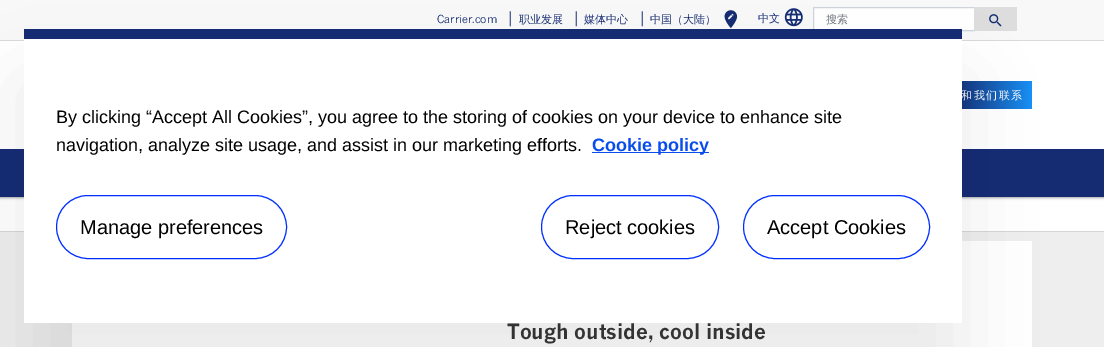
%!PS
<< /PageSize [1104 347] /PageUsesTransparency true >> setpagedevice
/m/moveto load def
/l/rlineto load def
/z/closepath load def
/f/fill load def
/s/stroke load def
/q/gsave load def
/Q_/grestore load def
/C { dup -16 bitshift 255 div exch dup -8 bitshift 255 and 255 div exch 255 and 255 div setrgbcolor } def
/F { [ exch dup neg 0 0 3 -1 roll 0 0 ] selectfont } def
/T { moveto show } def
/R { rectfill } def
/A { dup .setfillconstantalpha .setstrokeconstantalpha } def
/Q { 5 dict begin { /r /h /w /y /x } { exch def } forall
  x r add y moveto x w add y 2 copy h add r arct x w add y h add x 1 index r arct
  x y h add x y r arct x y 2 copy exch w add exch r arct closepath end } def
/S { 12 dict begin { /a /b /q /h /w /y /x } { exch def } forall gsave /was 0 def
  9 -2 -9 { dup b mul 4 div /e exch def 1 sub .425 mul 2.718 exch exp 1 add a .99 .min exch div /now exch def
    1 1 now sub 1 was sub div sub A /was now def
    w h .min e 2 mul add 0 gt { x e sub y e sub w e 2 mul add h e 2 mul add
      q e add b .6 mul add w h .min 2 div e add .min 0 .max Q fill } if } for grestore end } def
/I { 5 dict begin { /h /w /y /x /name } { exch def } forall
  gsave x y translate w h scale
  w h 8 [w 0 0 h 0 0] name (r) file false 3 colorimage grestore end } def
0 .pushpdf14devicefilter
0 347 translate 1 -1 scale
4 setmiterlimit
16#EEEEEE C
0 0 1104 347 R
16#FFFFFF C
0 197 1104 34 R
16#000000 C
0 1 1104 197 0 1.5 .12 S
0 1 1104 197 0 1 .24 S
16#FFFFFF C
0 41 1104 108 R
16#F8F8F8 C
0 0 1104 40 R
16#DADADA C
0 40 1104 1 R
/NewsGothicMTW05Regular-Regular 11 F
16#152C73 C
(Carrier.com) 437 23 T
/NewsGothicMTW05Regular-Regular 16 F
(|) 506 23 T
/WenQuanYiZenHei-Medium 11 F
(职业发展) 519 23 T
/NewsGothicMTW05Regular-Regular 16 F
(|) 572 23 T
/WenQuanYiZenHei-Medium 11 F
(媒体中心) 584 23 T
/NewsGothicMTW05Regular-Regular 16 F
(|) 638 23 T
/WenQuanYiZenHei-Medium 11 F
(中国（大陆）) 650 23 T
(1.rgb) 724 10 14 19 I
(中文) 758 22 T
(2.rgb) 784 8 19 19 I
16#FFFFFF C
813.5 7.5 m 161 0 l 0 23 l -161 0 l z q f Q_
16#CED4DA C
s
16#6C757D C
(搜索) 826 23 T
16#DDDDDD C
974 7 43 24 R
(3.rgb) 989 14 13 13 I
q 953 81 79 28 3 Q clip newpath
<< /ShadingType 2 /ColorSpace /DeviceRGB /Coords [1032 95 953 95] /Extend [true true] /Function << /FunctionType 2 /Domain [0 1] /C0 [.094 .569 .965] /C1 [.082 .173 .451] /N 1 >> >> shfill Q_
16#FFFFFF C
961 99 m 1.5 0 (和我们联系) ashow
16#152C73 C
0 149 1104 48 R
16#D6D6D6 C
0 231 1104 1 R
16#FFFFFF C
72 241 960 106 R
16#000000 C
24 84 938 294 0 35 .08 S
16#FFFFFF C
24 39 938 284 R
16#152C73 C
24 29 938 10 R
/LiberationSans-Regular 18 F
16#000000 C
(By clicking “Accept All Cookies”, you agree to the storing of cookies on your device to enhance site) 56 123 T
(navigation, analyze site usage, and assist in our marketing efforts.) 56 151 T
16#094DEC C
592 152 117 1 R
/LiberationSans-Bold 18 F
(Cookie policy) 592 151 T
16#002EFF C
56.5 195.5 230 63 31.5 Q s
/LiberationSans-Regular 20 F
16#000000 C
(Manage preferences) 80 234 T
16#002EFF C
541.5 195.5 177 63 31.5 Q s
16#000000 C
(Reject cookies) 565 234 T
16#002EFF C
743.5 195.5 186 63 31.5 Q s
16#000000 C
(Accept Cookies) 767 234 T
/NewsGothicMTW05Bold-Bold 20.75 F
16#333333 C
(Tough outside, cool inside) 507 339 T
.poppdf14devicefilter showpage
